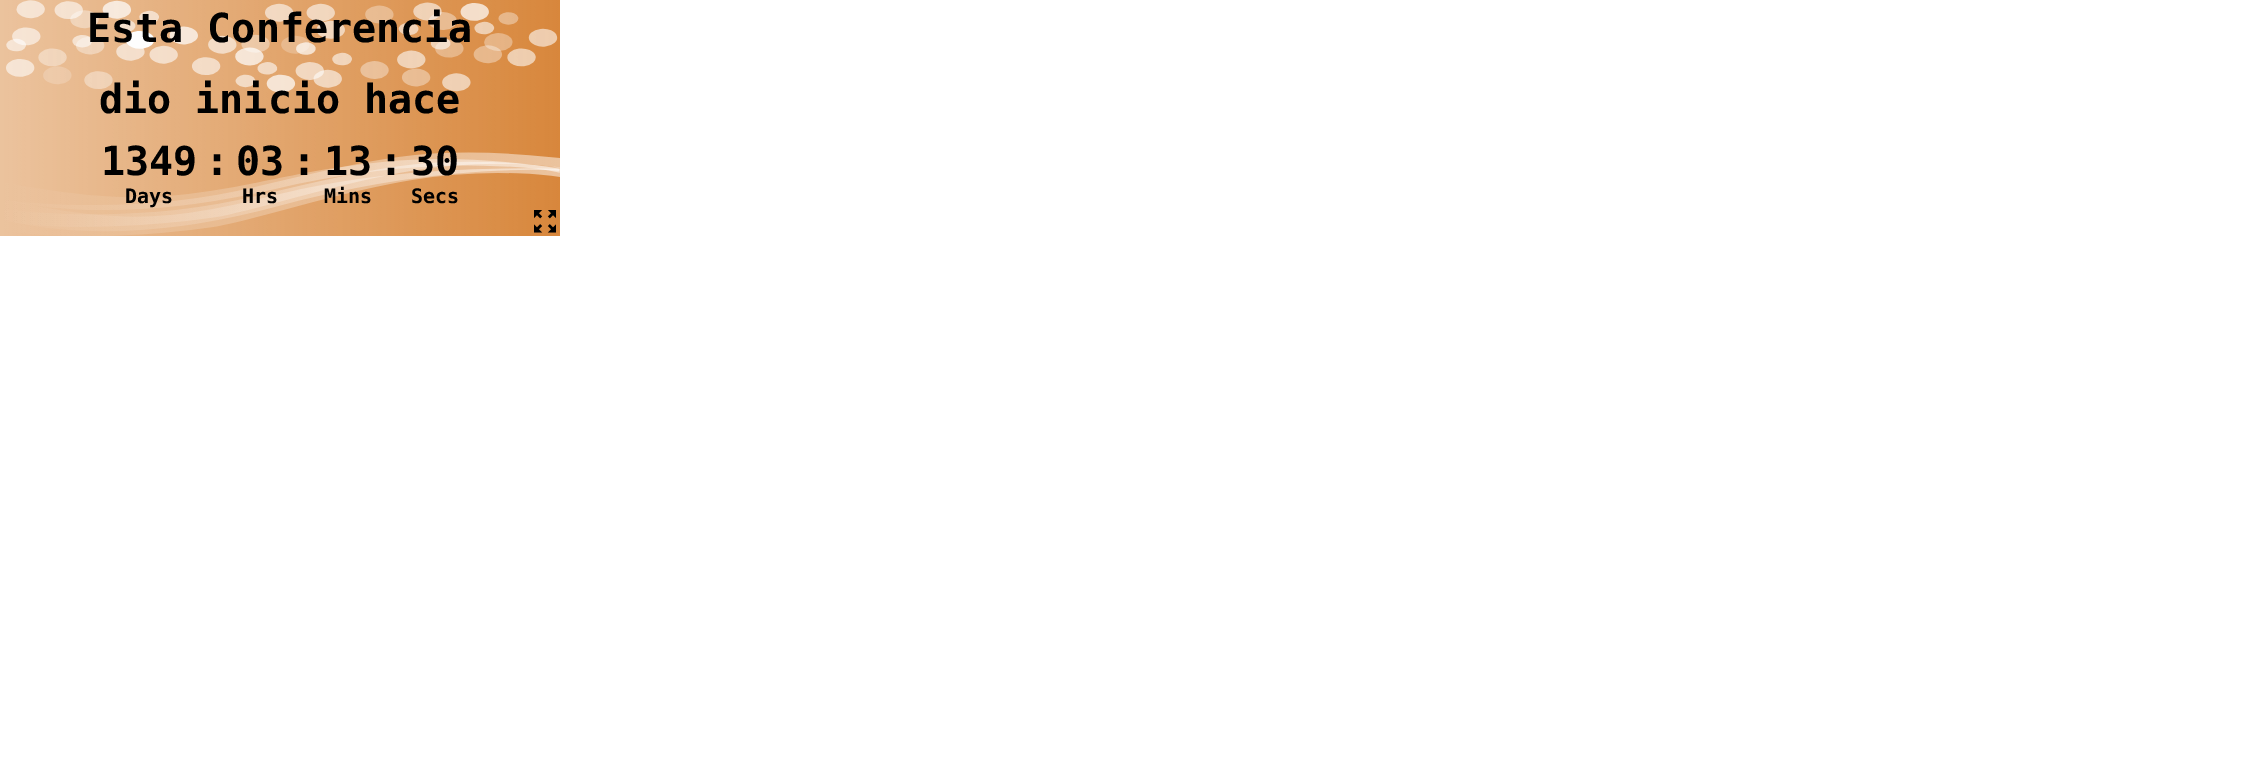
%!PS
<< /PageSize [2267 773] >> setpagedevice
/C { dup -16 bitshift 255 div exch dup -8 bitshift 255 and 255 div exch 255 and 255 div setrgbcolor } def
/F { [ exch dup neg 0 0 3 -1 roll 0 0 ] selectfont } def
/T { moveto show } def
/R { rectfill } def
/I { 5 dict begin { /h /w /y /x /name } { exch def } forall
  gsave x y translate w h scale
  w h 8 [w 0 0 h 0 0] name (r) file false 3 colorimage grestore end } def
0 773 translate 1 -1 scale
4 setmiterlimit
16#FFFFFF C
0 0 2267 773 R
16#D8873C C
0 0 560 236 R
(1.rgb) 0 0 560 236 I
/DejaVuSansMono-Bold 40 F
16#000000 C
(Esta Conferencia) 87 42 T
(dio inicio hace) 99 113 T
(1349) 101 175 T
(:) 205 175 T
(03) 236 175 T
(:) 292 175 T
(13) 324 175 T
(:) 379 175 T
(30) 411 175 T
/DejaVuSansMono-Bold 20 F
(Days) 125 203 T
(Hrs) 242 203 T
(Mins) 324 203 T
(Secs) 411 203 T
(2.rgb) 534 210 22 23 I
showpage
